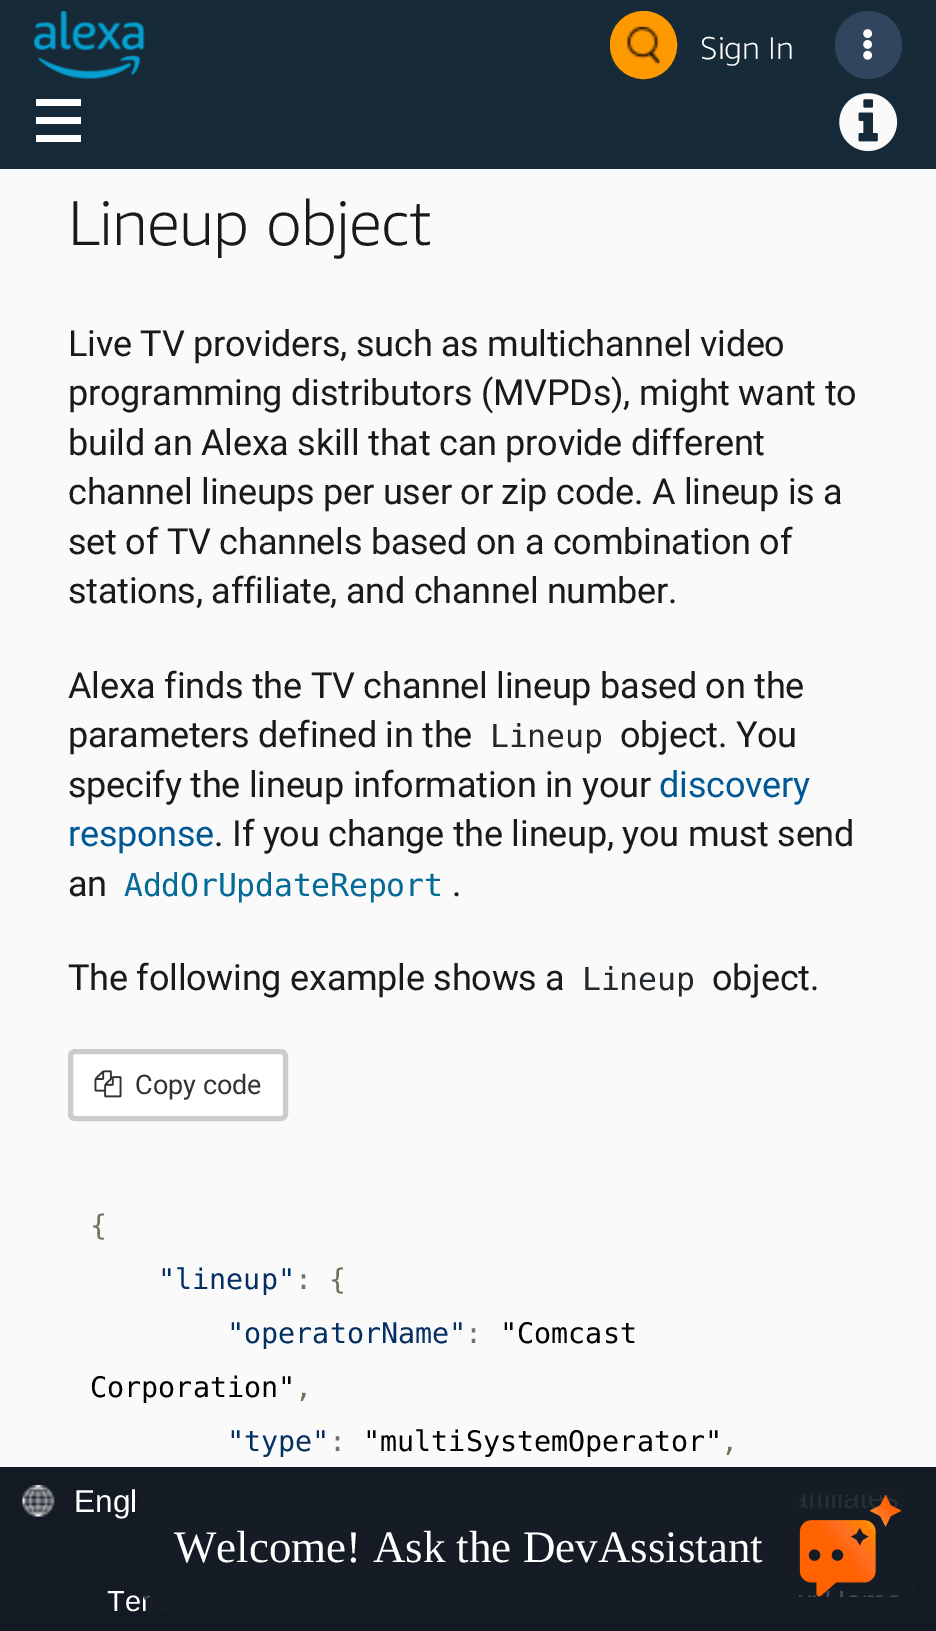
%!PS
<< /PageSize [936 1631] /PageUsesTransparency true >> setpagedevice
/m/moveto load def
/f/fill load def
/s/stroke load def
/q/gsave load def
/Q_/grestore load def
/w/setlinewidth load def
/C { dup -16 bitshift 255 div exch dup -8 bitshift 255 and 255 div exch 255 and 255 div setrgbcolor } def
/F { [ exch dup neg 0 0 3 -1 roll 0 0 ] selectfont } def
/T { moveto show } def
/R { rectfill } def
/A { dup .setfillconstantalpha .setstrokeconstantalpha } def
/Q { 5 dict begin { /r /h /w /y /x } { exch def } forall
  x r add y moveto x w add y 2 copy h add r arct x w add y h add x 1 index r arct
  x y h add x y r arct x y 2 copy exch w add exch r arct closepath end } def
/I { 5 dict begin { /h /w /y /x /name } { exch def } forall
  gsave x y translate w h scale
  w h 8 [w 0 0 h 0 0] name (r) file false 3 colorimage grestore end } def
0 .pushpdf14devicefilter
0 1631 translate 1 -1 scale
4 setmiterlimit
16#FAFAFA C
0 0 936 1631 R
16#162A38 C
0 0 936 90 R
(1.rgb) 34 11 111 68 I
16#FF9900 C
612.5 13.5 62 63 31 Q q f Q_
5 w
s
(2.rgb) 626 26 35 38 I
/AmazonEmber-Light 31.5 F
16#FFFFFF C
(Sign In) 700 59 T
16#31455E C
835 11 67 68 33.5 Q f
(3.rgb) 863 29 10 31 I
16#152939 C
0 90 936 79 R
16#FFFFFF C
36 99 45 7 R
36 117 45 7 R
36 135 45 7 R
(4.rgb) 839 93 59 59 I
/AmazonEmber-Light 63 F
16#1A1A1A C
68 245 m 1 0 32 -.75 0 (Lineup object) awidthshow
/Roboto-Regular 36 F
68 356 m -.23 0 (Live TV providers, such as multichannel video) ashow
68 405 m -.23 0 (programming distributors \(MVPDs\), might want to) ashow
68 455 m -.23 0 (build an Alexa skill that can provide different) ashow
68 504 m -.23 0 (channel lineups per user or zip code. A lineup is a) ashow
68 554 m -.23 0 (set of TV channels based on a combination of) ashow
68 603 m -.23 0 (stations, affiliate, and channel number.) ashow
68 698 m -.23 0 (Alexa finds the TV channel lineup based on the) ashow
68 747 m -.23 0 (parameters defined in the) ashow
/DejaVuSansMono-Regular 31.5 F
16#24292E C
490 747 m -.23 0 (Lineup) ashow
/Roboto-Regular 36 F
16#1A1A1A C
620 747 m -.23 0 (object. You) ashow
68 797 m -.23 0 (specify the lineup information in your) ashow
16#005994 C
659 797 m -.23 0 (discovery) ashow
68 846 m -.23 0 (response) ashow
16#1A1A1A C
214 846 m -.23 0 (. If you change the lineup, you must send) ashow
68 896 m -.23 0 (an) ashow
/DejaVuSansMono-Regular 31.5 F
16#046B99 C
124 896 m -.23 0 (AddOrUpdateReport) ashow
/Roboto-Regular 36 F
16#1A1A1A C
452 896 m -.23 0 (.) ashow
68 990 m -.23 0 (The following example shows a) ashow
/DejaVuSansMono-Regular 31.5 F
16#24292E C
582 990 m -.23 0 (Lineup) ashow
/Roboto-Regular 36 F
16#1A1A1A C
712 990 m -.23 0 (object.) ashow
16#FFFFFF C
70.5 1051.5 215 67 4.5 Q q f Q_
16#CCCCCC C
s
(5.rgb) 94 1070 28 28 I
/Roboto-Regular 27 F
16#333333 C
(Copy code) 135 1094 T
/DejaVuSansMono-Regular 28.4 F
16#75715E C
({) 90 1235 T
16#032F62 C
("lineup") 158 1289 T
16#75715E C
(: {) 295 1289 T
16#032F62 C
("operatorName") 227 1343 T
16#75715E C
(:) 465 1343 T
16#000000 C
("Comcast) 500 1343 T
(Corporation") 90 1397 T
16#75715E C
(,) 295 1397 T
16#032F62 C
("type") 227 1451 T
16#75715E C
(:) 329 1451 T
16#000000 C
("multiSystemOperator") 363 1451 T
16#75715E C
(,) 721 1451 T
16#131A23 C
0 1467 936 164 R
(6.rgb) 22 1485 33 32 I
/LiberationSans-Regular 31.5 F
16#FFFFFF C
(Engl) 74 1512 T
/LiberationSans-Regular 29 F
(Ter) 107 1611 T
0.8 A
16#161D26 C
137 1478 781 135 36 Q f
/LiberationSerif-Regular 45 F
1 A
16#FFFFFF C
(Welcome! Ask the DevAssistant) 174 1562 T
(7.rgb) 799 1495 103 102 I
.poppdf14devicefilter showpage
